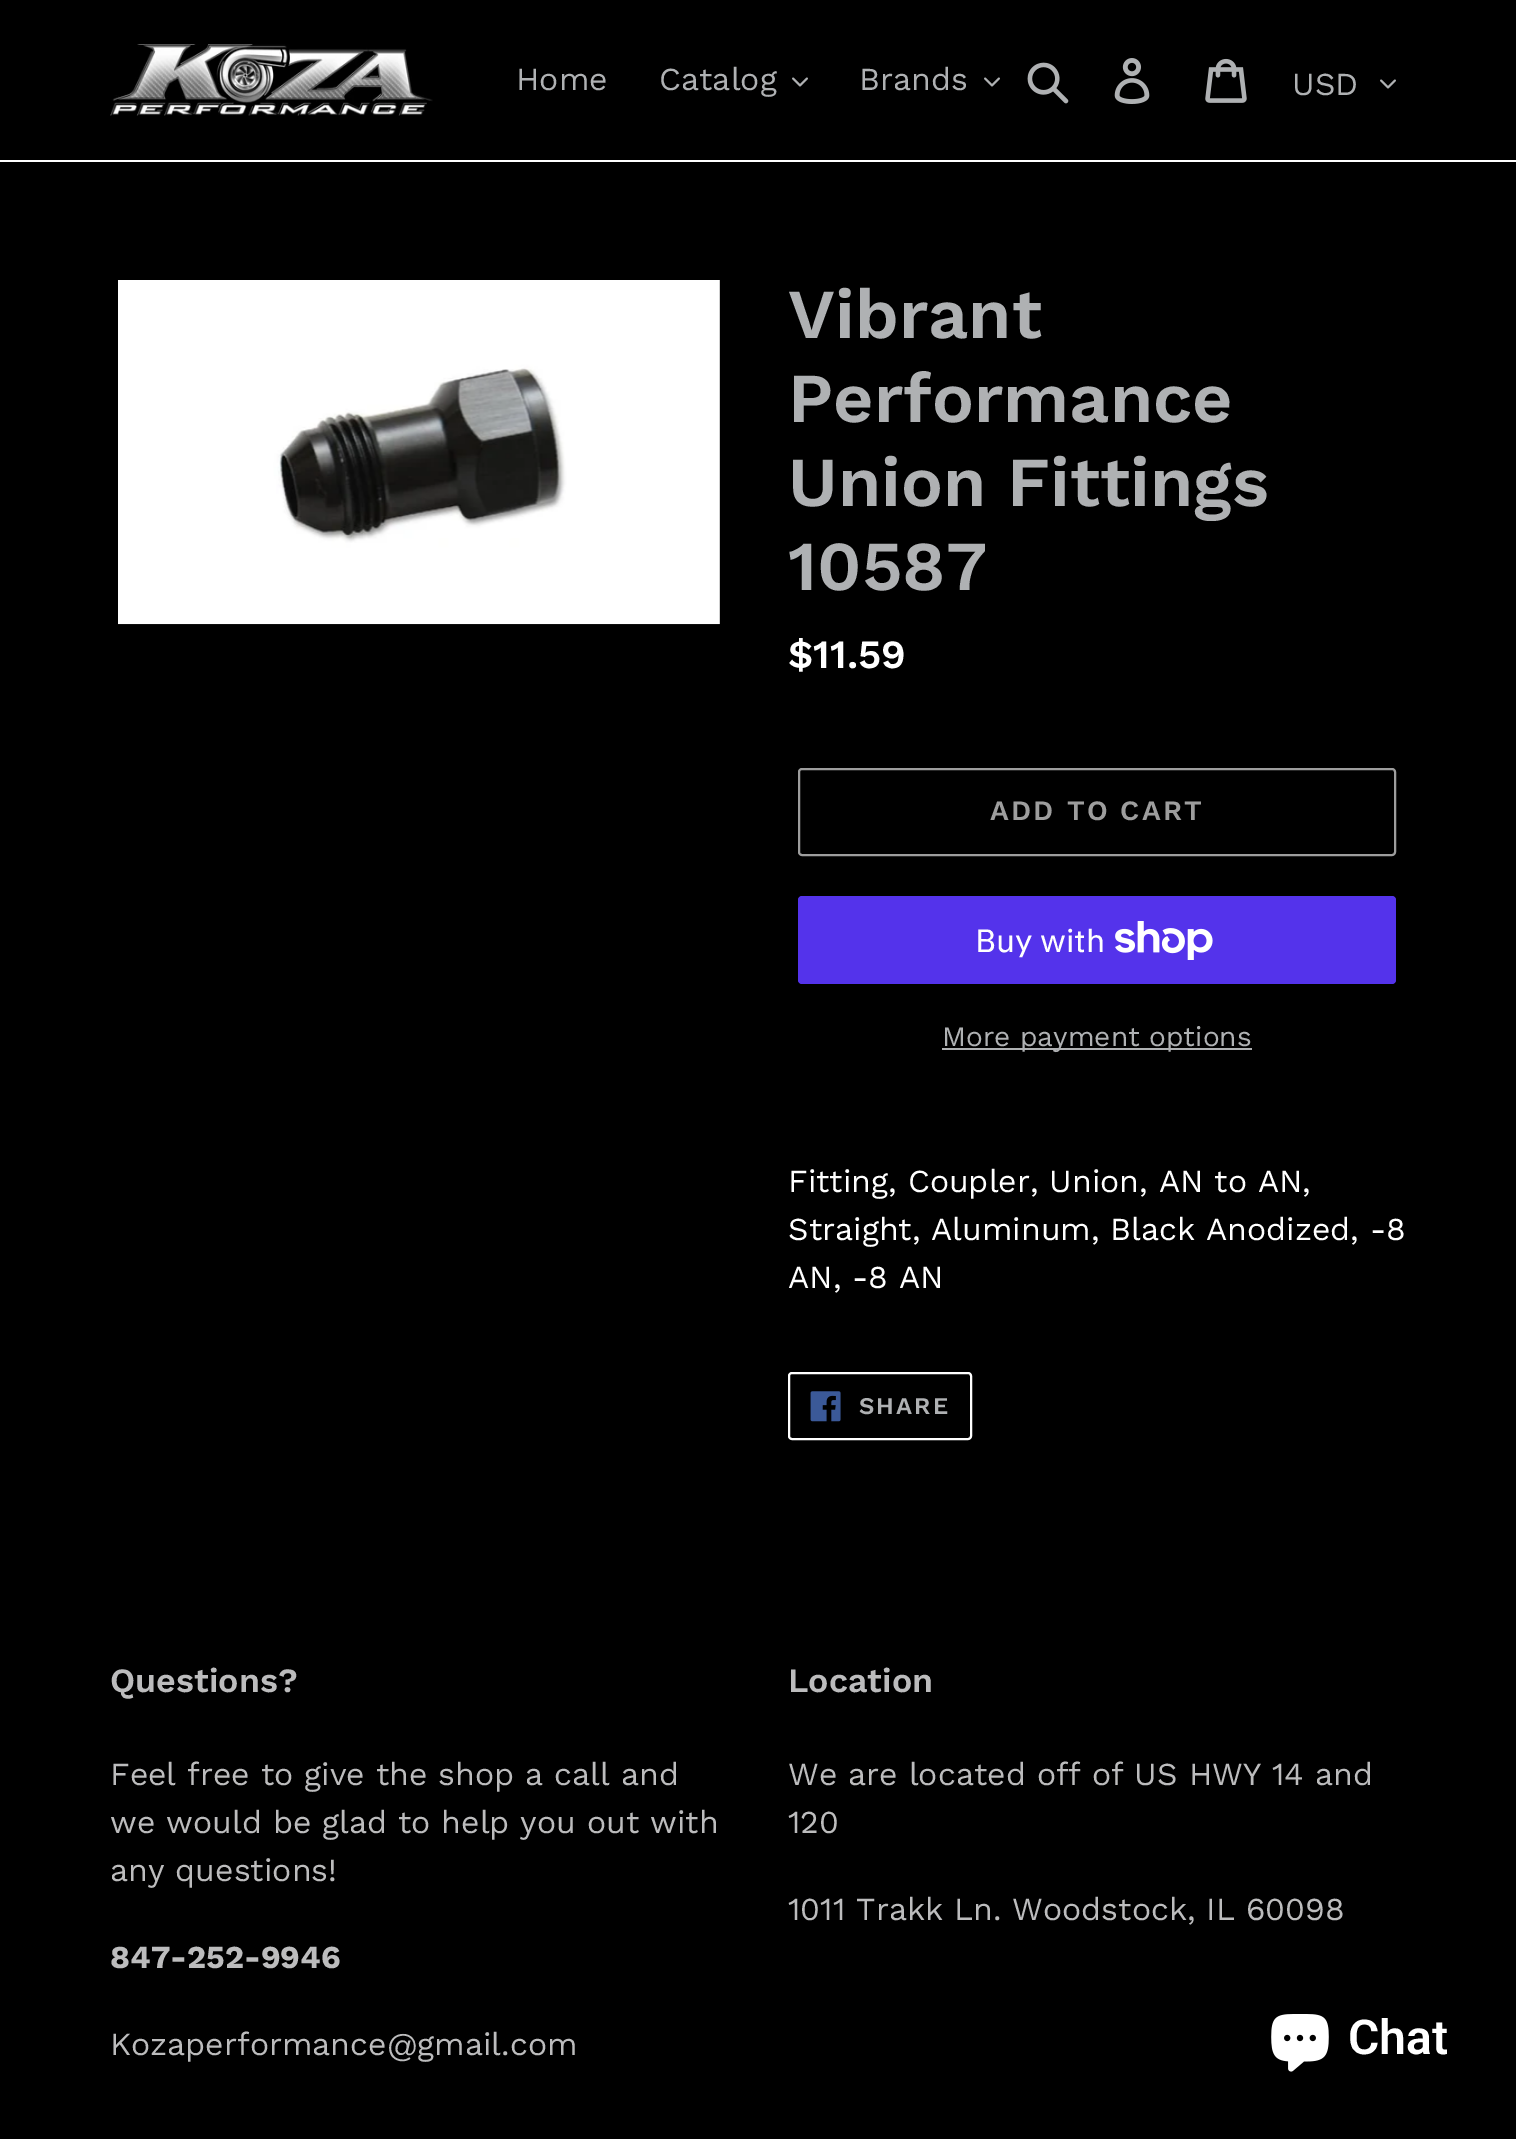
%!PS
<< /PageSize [1516 2139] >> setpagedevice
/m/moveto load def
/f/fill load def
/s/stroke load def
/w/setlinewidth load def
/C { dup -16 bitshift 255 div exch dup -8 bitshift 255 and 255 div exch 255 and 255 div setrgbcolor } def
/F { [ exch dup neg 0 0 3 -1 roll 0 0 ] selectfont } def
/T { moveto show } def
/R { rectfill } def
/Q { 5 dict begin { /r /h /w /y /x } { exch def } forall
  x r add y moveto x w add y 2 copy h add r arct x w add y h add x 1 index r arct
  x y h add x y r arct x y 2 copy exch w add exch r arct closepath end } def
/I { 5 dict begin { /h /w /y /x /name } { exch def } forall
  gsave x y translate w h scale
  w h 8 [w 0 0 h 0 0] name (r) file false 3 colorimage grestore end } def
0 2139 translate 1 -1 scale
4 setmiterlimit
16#000000 C
0 0 1516 2139 R
16#FFFFFF C
0 160 1516 2 R
(1.rgb) 110 44 323 72 I
/WorkSans-Regular 32 F
16#AFB1B3 C
(Home) 516 90 T
(Catalog) 659 90 T
(2.rgb) 792 77 16 10 I
(Brands) 859 90 T
(2.rgb) 984 77 16 10 I
(3.rgb) 1027 62 42 42 I
(4.rgb) 1114 58 36 46 I
(5.rgb) 1205 58 42 45 I
(USD) 1292 95 T
(2.rgb) 1380 79 16 10 I
(6.rgb) 118 280 602 345 I
/WorkSans-SemiBold 70 F
(Vibrant) 788 338 T
(Performance) 788 422 T
(Union Fittings) 788 506 T
(10587) 788 590 T
/WorkSans-SemiBold 40 F
16#FFFFFF C
($11.59) 788 668 T
16#9D9D9D C
2 w
799 769 596 86 3 Q s
/WorkSans-SemiBold 28 F
990 820 m 2.25 0 (ADD TO CART) ashow
16#5433EB C
798 896 598 88 4 Q f
/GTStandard-Regular 32 F
16#FFFFFF C
(Buy with) 975 952 T
(7.rgb) 1115 921 98 39 I
16#AFB1B3 C
942 1048 310 2 R
/WorkSans-Regular 28 F
(More payment options) 942 1046 T
/WorkSans-Regular 32 F
16#FFFFFF C
(Fitting, Coupler, Union, AN to AN,) 788 1192 T
(Straight, Aluminum, Black Anodized, -8) 788 1240 T
(AN, -8 AN) 788 1288 T
789 1373 182 66 3 Q s
(8.rgb) 810 1391 31 31 I
/WorkSans-SemiBold 24 F
16#AFB1B3 C
859 1414 m 2 0 (SHARE) ashow
/WorkSans-SemiBold 34 F
16#BCBCBD C
(Questions?) 110 1692 T
/WorkSans-Regular 32 F
(Feel free to give the shop a call and) 110 1785 T
(we would be glad to help you out with) 110 1833 T
(any questions!) 110 1881 T
/WorkSans-Bold 32 F
(847-252-9946) 110 1968 T
/WorkSans-Regular 32 F
(Kozaperformance@gmail.com) 110 2055 T
/WorkSans-SemiBold 34 F
(Location) 788 1692 T
/WorkSans-Regular 32 F
(We are located off of US HWY 14 and) 788 1785 T
(120) 788 1833 T
(1011 Trakk Ln. Woodstock, IL 60098) 788 1920 T
(9.rgb) 1271 2014 58 58 I
/Roboto-SemiBold 48 F
16#FFFFFF C
(Chat) 1348 2054 T
showpage
